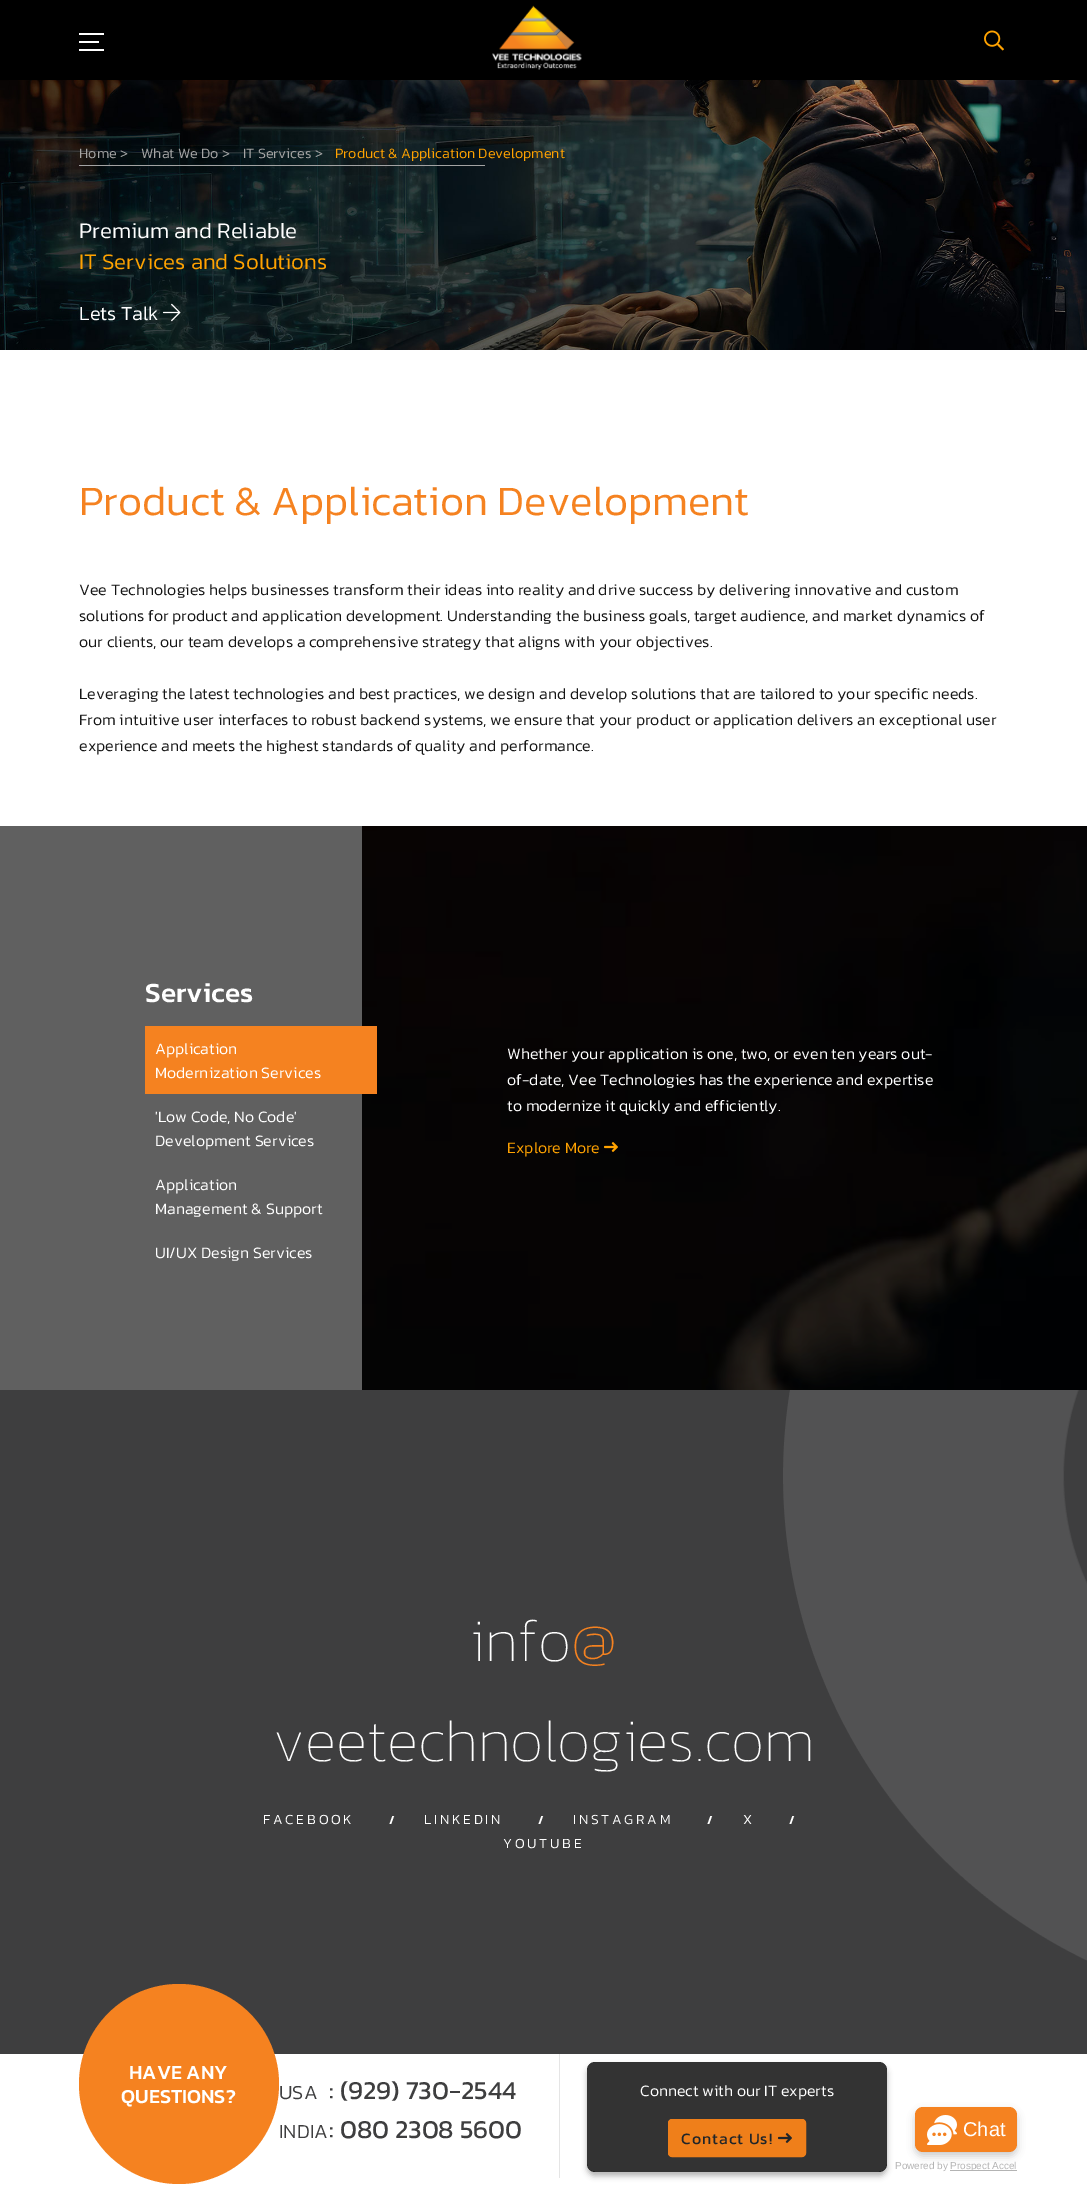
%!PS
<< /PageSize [1087 2192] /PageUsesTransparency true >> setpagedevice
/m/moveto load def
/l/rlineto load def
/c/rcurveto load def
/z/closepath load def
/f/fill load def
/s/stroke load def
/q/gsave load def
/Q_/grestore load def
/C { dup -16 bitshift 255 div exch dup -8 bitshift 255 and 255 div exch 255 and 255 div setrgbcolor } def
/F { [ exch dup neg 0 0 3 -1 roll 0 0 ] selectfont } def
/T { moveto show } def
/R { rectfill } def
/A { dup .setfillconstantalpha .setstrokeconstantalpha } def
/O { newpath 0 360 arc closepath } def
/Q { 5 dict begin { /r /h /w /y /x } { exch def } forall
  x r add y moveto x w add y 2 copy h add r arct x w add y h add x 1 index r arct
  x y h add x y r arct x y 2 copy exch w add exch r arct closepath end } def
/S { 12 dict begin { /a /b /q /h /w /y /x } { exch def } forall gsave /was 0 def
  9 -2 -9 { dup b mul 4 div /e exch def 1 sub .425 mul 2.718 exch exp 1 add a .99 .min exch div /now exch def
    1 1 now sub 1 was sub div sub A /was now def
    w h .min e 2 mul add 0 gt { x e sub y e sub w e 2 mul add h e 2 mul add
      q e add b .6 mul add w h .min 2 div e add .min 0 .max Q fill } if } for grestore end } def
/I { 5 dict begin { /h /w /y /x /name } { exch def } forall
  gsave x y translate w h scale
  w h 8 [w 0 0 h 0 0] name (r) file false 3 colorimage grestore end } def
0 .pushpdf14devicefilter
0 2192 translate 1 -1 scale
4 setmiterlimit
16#FFFFFF C
0 0 1087 2192 R
(1.rgb) 0 80 1087 270 I
16#A3A3A3 C
79 165 406 1 R
/Kanit-Light 14.4 F
16#A5A5A5 C
(Home >) 79 158 T
(What We Do >) 141 158 T
(IT Services >) 243 158 T
16#FFA200 C
(Product & Application Development) 335 158 T
/Kanit-Light 22.4 F
16#FFFFFF C
(Premium and Reliable) 79 238 T
16#FFA200 C
(IT Services and Solutions) 79 269 T
/Kanit-Light 20 F
16#FFFFFF C
(Lets Talk) 79 320 T
(2.rgb) 163 303 18 19 I
/Kanit-Light 42 F
16#F58220 C
(Product & Application Development) 79 515 T
/Kanit-Light 16 F
16#151515 C
(Vee Technologies helps businesses transform their ideas into reality and drive success by delivering innovative and custom) 79 595 T
(solutions for product and application development. Understanding the business goals, target audience, and market dynamics of) 79 621 T
(our clients, our team develops a comprehensive strategy that aligns with your objectives.) 79 647 T
(Leveraging the latest technologies and best practices, we design and develop solutions that are tailored to your specific needs.) 79 699 T
(From intuitive user interfaces to robust backend systems, we ensure that your product or application delivers an exceptional user) 79 725 T
(experience and meets the highest standards of quality and performance.) 79 751 T
16#606060 C
0 826 362 564 R
/Kanit-Medium 28 F
16#FFFFFF C
(Services) 145 1002 T
(3.rgb) 362 826 725 564 I
16#F58220 C
145 1026 232 68 R
/Kanit-Light 16 F
16#FFFFFF C
(Application) 155 1054 T
(Modernization Services) 155 1078 T
('Low Code, No Code') 155 1122 T
(Development Services) 155 1146 T
(Application) 155 1190 T
(Management & Support) 155 1214 T
(UI/UX Design Services) 155 1258 T
(Whether your application is one, two, or even ten years out-) 507 1059 T
(of-date, Vee Technologies has the experience and expertise) 507 1085 T
(to modernize it quickly and efficiently.) 507 1111 T
16#FFA200 C
(Explore More) 507 1153 T
(4.rgb) 604 1142 14 10 I
16#3E3E3F C
0 1390 1087 664 R
/Kanit-Thin 60 F
16#FFFFFF C
(info) 470 1661 T
16#F58220 C
(@) 571 1658 T
(5.rgb) 783 1390 304 571 I
16#FFFFFF C
(veetechnologies.com) 273 1761 T
/Kanit-Light 14 F
263 1824 m 2.75 0 (FACEBOOK) ashow
/Kanit-SemiBold 12 F
(/) 389 1824 T
/Kanit-Light 14 F
424 1824 m 2.75 0 (LINKEDIN) ashow
/Kanit-SemiBold 12 F
(/) 538 1824 T
/Kanit-Light 14 F
573 1824 m 2.75 0 (INSTAGRAM) ashow
/Kanit-SemiBold 12 F
(/) 707 1824 T
/Kanit-Light 14 F
743 1824 m 2.75 0 (X) ashow
/Kanit-SemiBold 12 F
(/) 789 1824 T
/Kanit-Light 14 F
503 1848 m 2.75 0 (YOUTUBE) ashow
16#F58220 C
179 2084 100 O f
/Kanit-Medium 20 F
16#FFFFFF C
(HAVE ANY) 129 2079 T
(QUESTIONS?) 121 2103 T
/Kanit-Light 20 F
16#3E3E3F C
(USA) 279 2099 T
/Kanit-Regular 26 F
(: \(929\) 730-2544) 329 2099 T
/Kanit-Light 20 F
(INDIA) 279 2138 T
/Kanit-Regular 26 F
(: 080 2308 5600) 329 2138 T
16#E5E5E5 C
559 2054 1 124 R
q
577 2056 m 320 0 l 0 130 l -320 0 l z 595 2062 m 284 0 l 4.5 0 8 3.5 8 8 c 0 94 l 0 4.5 -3.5 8 -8 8 c -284 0 l -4.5 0 -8 -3.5 -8 -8 c 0 -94 l 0 -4.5 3.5 -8 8 -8 c z eoclip newpath
16#000000 C
587 2066 300 110 8 3 .3 S
Q_
0.8 A
16#000000 C
587 2062 300 110 8 Q f
/Kanit-Light 16 F
1 A
16#FFFFFF C
(Connect with our IT experts) 640 2096 T
16#EF7F1A C
668.5 2119.5 137 37 3.5 Q q f Q_
s
/Kanit-Regular 16 F
16#212529 C
681 2144 m 1 0 (Contact Us!) ashow
(6.rgb) 778 2133 14 10 I
16#000000 C
0 0 1087 80 R
16#FFFFFF C
79 33 25 2 R
79 41 20 2 R
79 49 25 2 R
(7.rgb) 492 5 90 65 I
(8.rgb) 984 30 20 21 I
16#000000 C
915 2111 102 45 8 4 .2 S
16#F58220 C
915 2107 102 45 8 Q f
(9.rgb) 927 2115 30 30 I
/LiberationSans-Regular 20 F
16#FFFFFF C
(Chat) 963 2136 T
/LiberationSans-Regular 10 F
16#B3B3B3 C
(Powered by) 895 2169 T
950 2170 67 1 R
(Prospect Accel) 950 2169 T
.poppdf14devicefilter showpage
